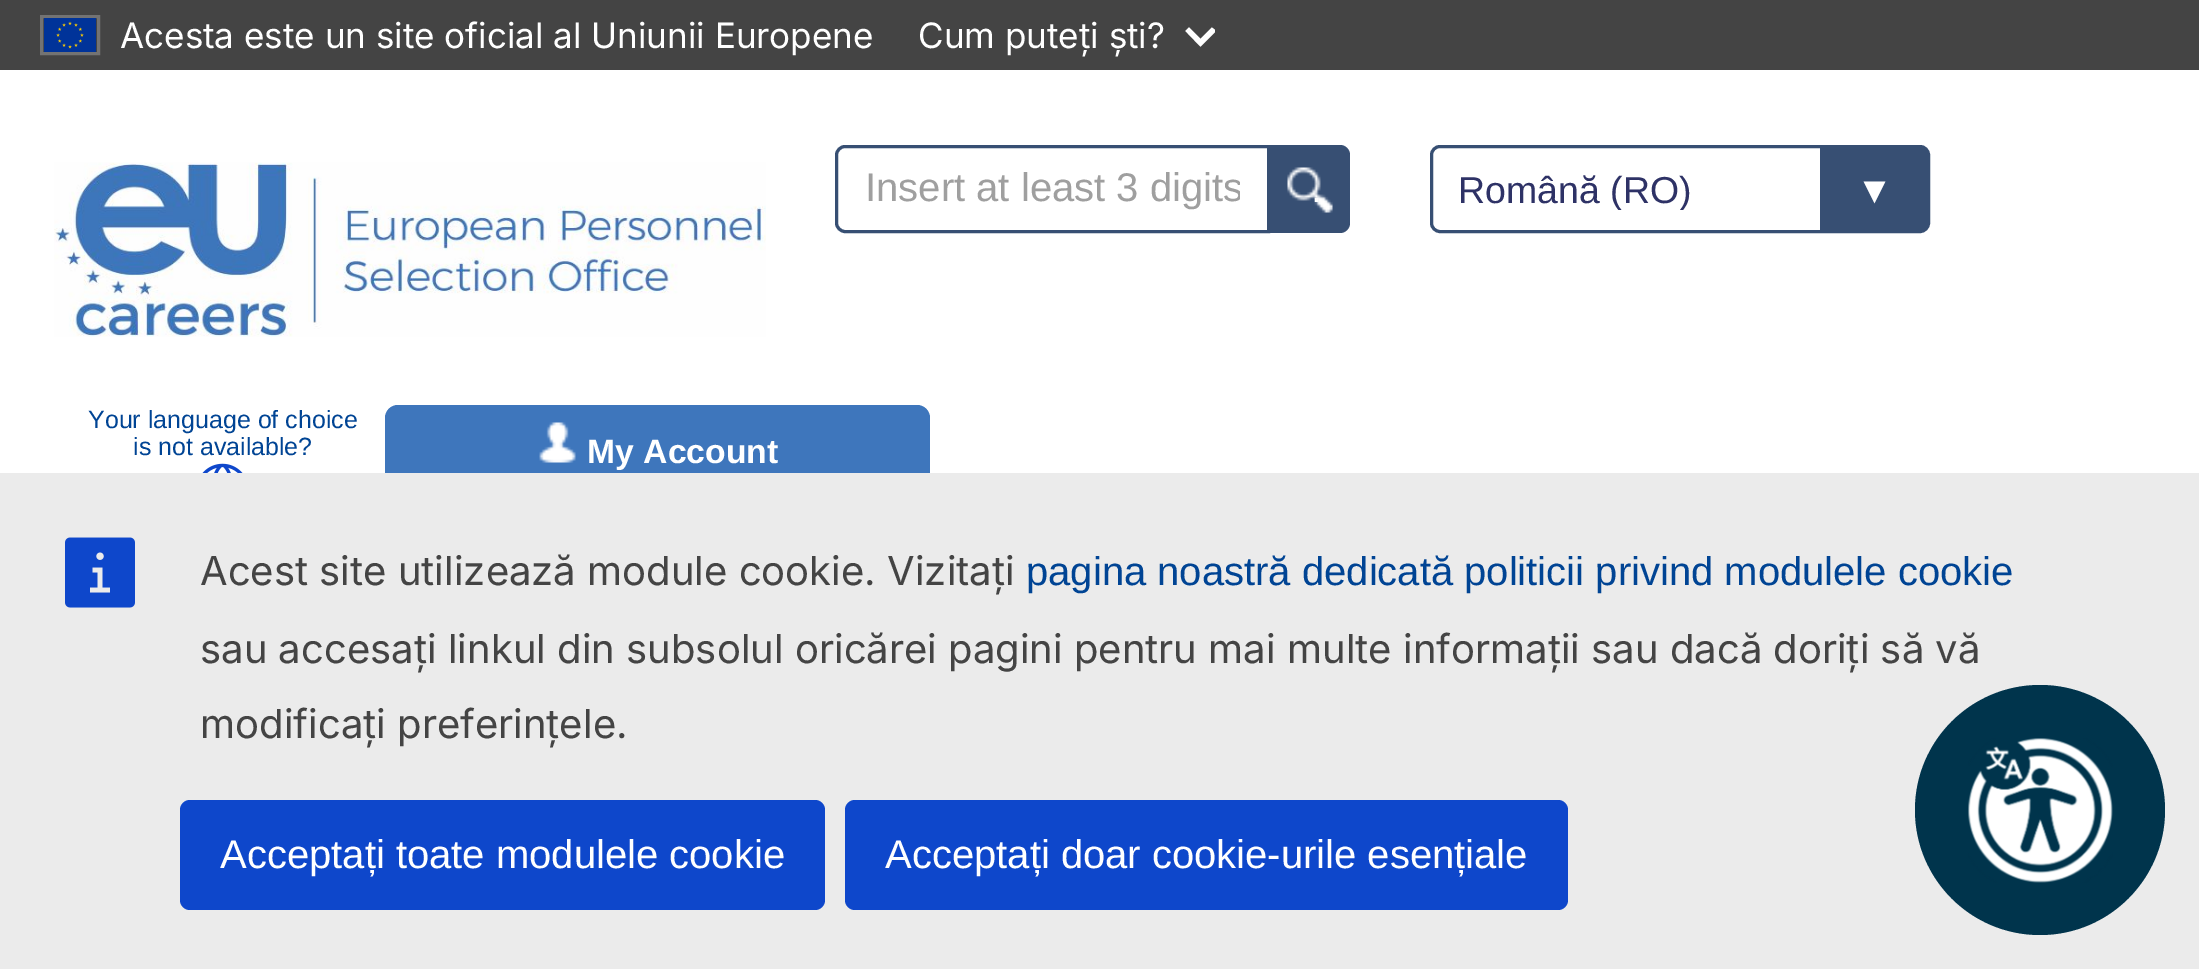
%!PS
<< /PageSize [2199 969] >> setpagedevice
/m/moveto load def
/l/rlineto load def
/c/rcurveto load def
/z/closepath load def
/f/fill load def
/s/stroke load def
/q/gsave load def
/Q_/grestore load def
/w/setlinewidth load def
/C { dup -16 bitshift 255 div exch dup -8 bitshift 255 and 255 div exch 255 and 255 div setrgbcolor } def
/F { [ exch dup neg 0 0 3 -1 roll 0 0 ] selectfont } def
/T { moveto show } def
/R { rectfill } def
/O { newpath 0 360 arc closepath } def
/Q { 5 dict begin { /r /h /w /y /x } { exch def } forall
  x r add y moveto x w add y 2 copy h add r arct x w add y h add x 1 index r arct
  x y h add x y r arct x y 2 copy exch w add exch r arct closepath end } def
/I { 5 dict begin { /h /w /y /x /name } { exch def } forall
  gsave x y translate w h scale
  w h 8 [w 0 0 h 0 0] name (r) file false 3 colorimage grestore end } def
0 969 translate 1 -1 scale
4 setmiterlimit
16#FFFFFF C
0 0 2199 969 R
16#444444 C
0 0 2199 70 R
16#737373 C
3 w
41.5 16.5 57 37 rectstroke
(1.rgb) 44 18 52 34 I
/Inter-Regular 35 F
16#FFFFFF C
(Acesta este un site oficial al Uniunii Europene) 120 48 T
(Cum puteți ști?) 918 48 T
q
1185 20 30 30 rectclip
3.1 w
1187.5 31 m 1.5 -1.5 l 11.5 11.5 l 11.5 -11.5 l 2 1.5 l -13.5 13.5 l z s
Q_
(2.rgb) 54 162 712 175 I
16#374F73 C
845 146.5 m 423.5 0 l 0 85 l -423.5 0 l -4.5 0 -8.5 -4 -8.5 -8.5 c 0 -68 l 0 -4.5 4 -8.5 8.5 -8.5 c z s
q
865 168 375 45 rectclip
/LiberationSans-Regular 40 F
16#9F9F9F C
(Insert at least 3 digits) 865 201 T
Q_
1270 145 m 70 0 l 5.5 0 10 4.5 10 10 c 0 68 l 0 5.5 -4.5 10 -10 10 c -70 0 l z f
(3.rgb) 1287 167 46 46 I
/LiberationSans-Regular 40 F
16#FFFFFF C
(.) 1311 202 T
16#374F73 C
1820 145 m 97 0 l 7 0 13 6 13 13 c 0 62 l 0 7 -6 13 -13 13 c -97 0 l z f
1431.5 146.5 497 85 8.5 Q s
q
1458 168 445 42 rectclip
/LiberationSans-Regular 37.5 F
16#2E3266 C
(Română \(RO\)) 1458 203 T
Q_
/LiberationSans-Regular 37.5 F
16#FFFFFF C
(▼) 1856 203 T
/LiberationSans-Regular 25 F
16#004494 C
(Your language of choice) 88 428 T
(is not available?) 133 455 T
(4.rgb) 202 463 41 10 I
16#3E76BC C
385 405 545 88 13 Q f
(5.rgb) 539 422 37 41 I
/LiberationSans-Bold 33.75 F
16#FFFFFF C
(My Account) 587 463 T
16#EBEBEB C
0 473 2199 496 R
(6.rgb) 65 537 70 71 I
/Inter-Regular 40 F
16#444444 C
(Acest site utilizează module cookie. Vizitați) 200 585 T
/LiberationSans-Regular 40 F
16#004494 C
(pagina noastră dedicată politicii privind modulele cookie) 1026 585 T
/Inter-Regular 40 F
16#444444 C
(sau accesați linkul din subsolul oricărei pagini pentru mai multe informații sau dacă doriți să vă) 200 663 T
(modificați preferințele.) 200 738 T
16#0E47CB C
180 800 645 110 10 Q f
/LiberationSans-Regular 40 F
16#FFFFFF C
(Acceptați toate modulele cookie) 220 868 T
16#0E47CB C
845 800 723 110 10 Q f
16#FFFFFF C
(Acceptați doar cookie-urile esențiale) 885 868 T
16#00344C C
2040 810 125 O f
(7.rgb) 1968 738 145 145 I
showpage
